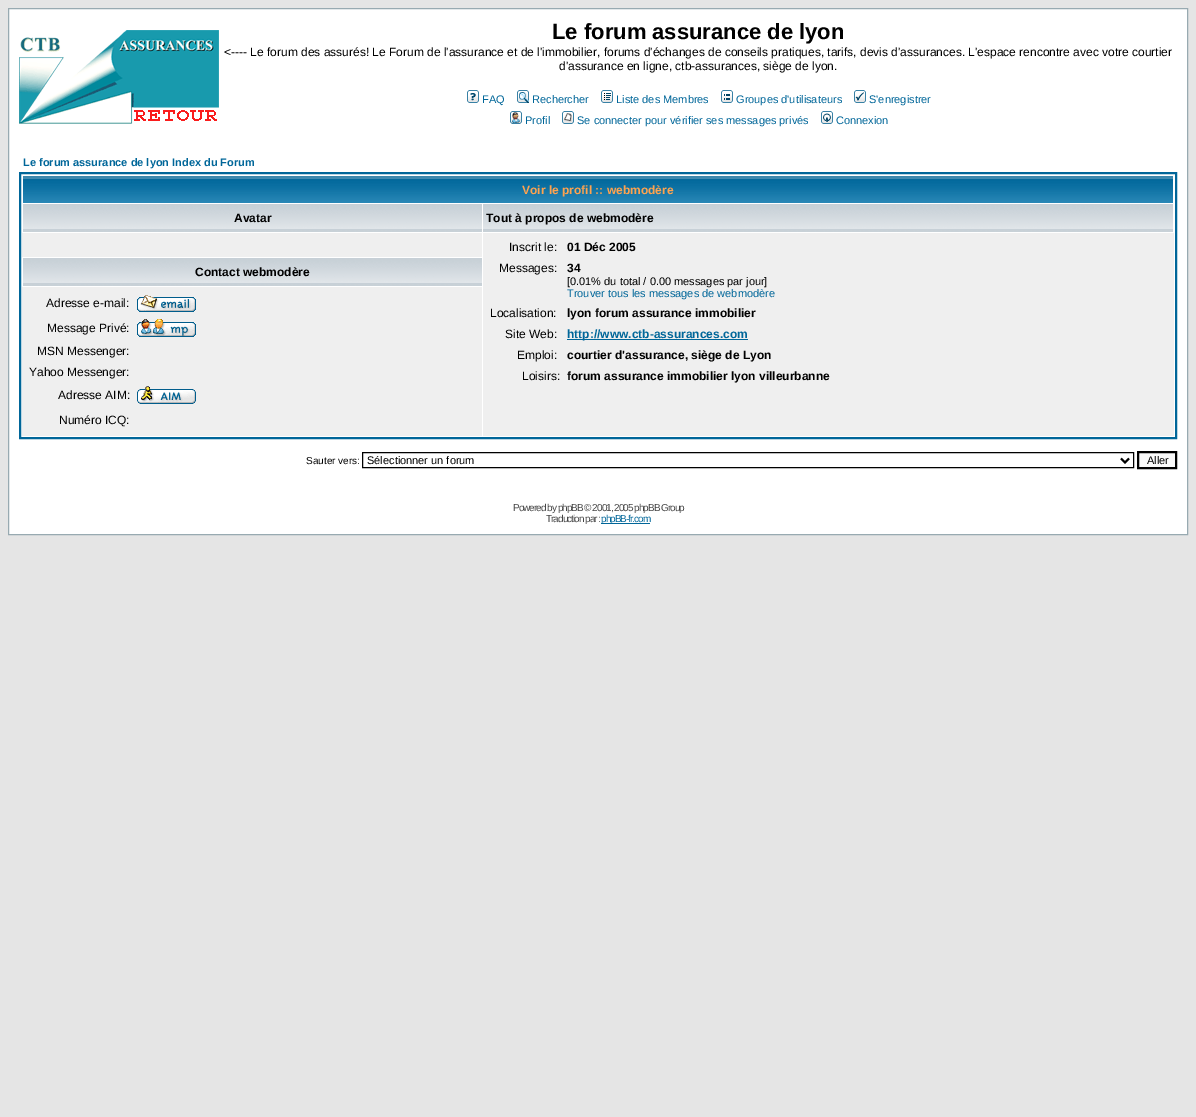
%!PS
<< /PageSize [1196 1117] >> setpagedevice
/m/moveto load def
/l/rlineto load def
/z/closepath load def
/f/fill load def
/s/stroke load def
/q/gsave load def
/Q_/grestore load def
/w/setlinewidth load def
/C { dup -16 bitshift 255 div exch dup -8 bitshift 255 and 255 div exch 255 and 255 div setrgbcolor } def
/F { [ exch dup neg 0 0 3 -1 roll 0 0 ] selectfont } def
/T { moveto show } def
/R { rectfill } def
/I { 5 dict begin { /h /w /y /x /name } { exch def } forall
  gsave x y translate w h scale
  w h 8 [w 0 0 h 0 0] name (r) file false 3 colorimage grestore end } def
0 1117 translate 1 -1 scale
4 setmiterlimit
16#E5E5E5 C
0 0 1196 1117 R
16#FFFFFF C
8.5 8.5 m 1179 0 l 0 526 l -1179 0 l z q f Q_
16#98AAB1 C
s
(1.rgb) 19 30 200 94 I
/LiberationSans-Bold 22 F
16#000000 C
(Le forum assurance de lyon) 552 39 T
/LiberationSans-Regular 12 F
(<---- Le forum des assurés! Le Forum de l'assurance et de l'immobilier, forums d'échanges de conseils pratiques, tarifs, devis d'assurances. L'espace rencontre avec votre courtier) 224 56 T
(d'assurance en ligne, ctb-assurances, siège de lyon.) 559 70 T
(2.rgb) 467 90 12 13 I
/LiberationSans-Regular 11 F
16#006699 C
(FAQ) 482 103 T
(3.rgb) 517 90 12 13 I
(Rechercher) 532 103 T
(4.rgb) 601 90 12 13 I
(Liste des Membres) 616 103 T
(5.rgb) 721 90 12 13 I
(Groupes d'utilisateurs) 736 103 T
(6.rgb) 854 90 12 13 I
(S'enregistrer) 869 103 T
(7.rgb) 510 111 12 13 I
(Profil) 525 124 T
(8.rgb) 562 111 12 13 I
(Se connecter pour vérifier ses messages privés) 577 124 T
(9.rgb) 821 111 12 13 I
(Connexion) 836 124 T
/LiberationSans-Bold 11 F
(Le forum assurance de lyon Index du Forum) 23 166 T
2 w
20 173 1156 265 rectstroke
(10.rgb) 23 176 1150 27 I
/LiberationSans-Bold 12 F
16#FFA34F C
(Voir le profil :: webmodère) 522 194 T
(11.rgb) 23 204 459 28 I
16#000000 C
(Avatar) 234 222 T
(12.rgb) 483 204 690 28 I
(Tout à propos de webmodère) 486 222 T
(11.rgb) 23 258 459 28 I
(Contact webmodère) 195 276 T
16#EFEFEF C
22 233 460 24 R
483 233 691 203 R
/LiberationSans-Regular 12 F
16#000000 C
(Inscrit le:) 509 251 T
/LiberationSans-Bold 12 F
(01 Déc 2005) 567 251 T
/LiberationSans-Regular 12 F
(Messages:) 499 272 T
/LiberationSans-Bold 12 F
(34) 567 272 T
/LiberationSans-Regular 11 F
([0.01% du total / 0.00 messages par jour]) 567 285 T
16#006699 C
(Trouver tous les messages de webmodère) 567 297 T
/LiberationSans-Regular 12 F
16#000000 C
(Localisation:) 490 317 T
/LiberationSans-Bold 12 F
(lyon forum assurance immobilier) 567 317 T
/LiberationSans-Regular 12 F
(Site Web:) 505 338 T
16#006699 C
567 339 181 1 R
/LiberationSans-Bold 12 F
(http://www.ctb-assurances.com) 567 338 T
/LiberationSans-Regular 12 F
16#000000 C
(Emploi:) 517 359 T
/LiberationSans-Bold 12 F
(courtier d'assurance, siège de Lyon) 567 359 T
/LiberationSans-Regular 12 F
(Loisirs:) 522 380 T
/LiberationSans-Bold 12 F
(forum assurance immobilier lyon villeurbanne) 567 380 T
16#EFEFEF C
22 287 460 149 R
/LiberationSans-Regular 12 F
16#000000 C
(Adresse e-mail:) 46 307 T
(13.rgb) 137 295 59 17 I
(Message Privé:) 47 332 T
(14.rgb) 137 319 59 18 I
(MSN Messenger:) 37 355 T
(Yahoo Messenger:) 29 376 T
(Adresse AIM:) 58 399 T
(15.rgb) 137 386 59 18 I
(Numéro ICQ:) 59 424 T
/LiberationSans-Regular 10 F
(Sauter vers:) 306 464 T
1 w
362.5 452.5 771 15 rectstroke
2 w
1121 458.5 m 4 4 l 4 -4 l s
/LiberationSans-Regular 11 F
(Sélectionner un forum) 367 464 T
16#FAFAFA C
1138 452 m 38 0 l 0 16 l -38 0 l z q f Q_
16#000000 C
s
(Aller) 1147 464 T
/LiberationSans-Regular 10 F
16#444444 C
513 511 m -1 0 (Powered by phpBB © 2001, 2005 phpBB Group) ashow
546 522 m -1 0 (Traduction par :) ashow
16#006699 C
601 523 49 1 R
601 522 m -1 0 (phpBB-fr.com) ashow
showpage
